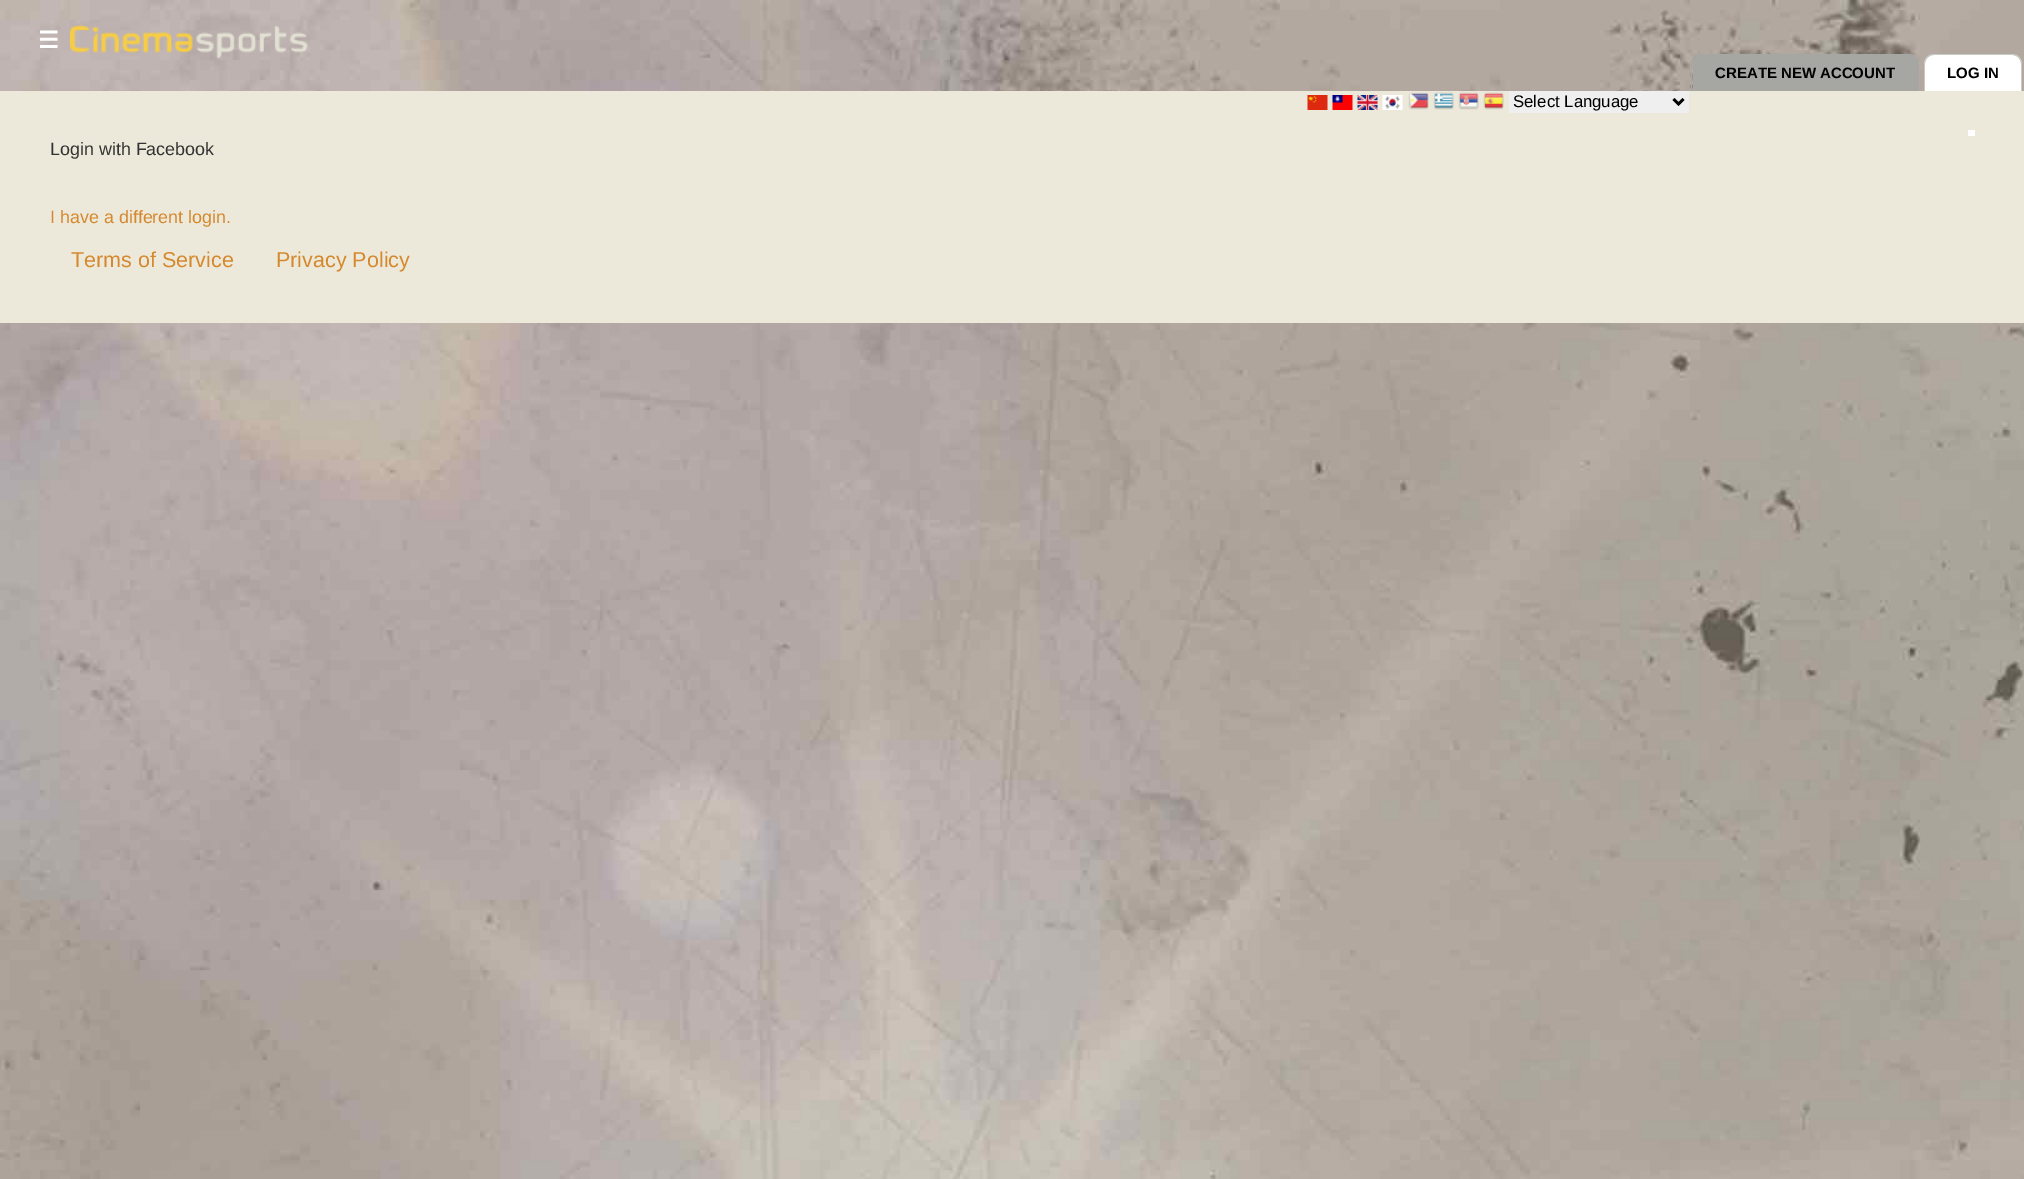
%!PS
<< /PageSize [2024 1179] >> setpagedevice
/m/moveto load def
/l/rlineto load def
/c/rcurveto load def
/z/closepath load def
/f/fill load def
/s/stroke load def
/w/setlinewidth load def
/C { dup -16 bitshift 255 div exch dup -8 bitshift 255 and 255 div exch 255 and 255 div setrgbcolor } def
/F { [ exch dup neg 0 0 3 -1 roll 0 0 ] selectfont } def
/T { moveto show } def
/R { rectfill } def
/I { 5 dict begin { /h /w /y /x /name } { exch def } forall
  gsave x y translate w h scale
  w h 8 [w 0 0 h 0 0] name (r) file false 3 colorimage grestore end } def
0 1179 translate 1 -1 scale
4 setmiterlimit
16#FFFFFF C
0 0 2024 1179 R
(1.rgb) 0 0 2024 1179 I
/DejaVuSans-Bold 23 F
(☰) 38 48 T
(2.rgb) 70 25 238 34 I
16#A6A7A2 C
1702 55 m 207 0 l 5 0 9 4 9 9 c 0 40 l -225 0 l 0 -40 l 0 -5 4 -9 9 -9 c z f
1701 54 m 208 0 l 5 0 10 4 10 10 c 0 40 l -228 0 l 0 -40 l 0 -6 5 -10 10 -10 c z 1701 55 m 208 0 l 5 0 9 4 9 9 c 0 40 l -226 0 l 0 -40 l 0 -5 4 -9 9 -9 c z eofill
/LiberationSans-Bold 15 F
16#000000 C
(CREATE NEW ACCOUNT) 1715 78 T
16#FFFFFF C
1934 55 m 78 0 l 5 0 9 4 9 9 c 0 40 l -96 0 l 0 -40 l 0 -5 4 -9 9 -9 c z f
16#C9CAC4 C
1934 54 m 78 0 l 6 0 10 4 10 10 c 0 40 l -98 0 l 0 -40 l 0 -6 4 -10 10 -10 c z 1934 55 m 78 0 l 5 0 9 4 9 9 c 0 40 l -96 0 l 0 -40 l 0 -5 4 -9 9 -9 c z eofill
16#000000 C
(LOG IN) 1947 78 T
16#ECE9DB C
0 91 2024 232 R
(3.rgb) 1307 95 21 15 I
(4.rgb) 1332 95 21 15 I
(5.rgb) 1357 95 21 15 I
(6.rgb) 1382 95 21 15 I
(7.rgb) 1408 92 21 18 I
(8.rgb) 1433 92 21 18 I
(9.rgb) 1458 92 21 18 I
(10.rgb) 1483 92 21 18 I
16#EFEFEF C
1509 91 180 22 R
16#000000 C
2.5 w
1673.5 99 m 5 5 l 5 -5 l s
/LiberationSans-Regular 16.75 F
(Select Language) 1513 107 T
16#FFFFFF C
1968 130 7 6 R
/LiberationSans-Regular 17.9 F
16#333333 C
(Login with Facebook) 50 155 T
16#D6882C C
(I have a different login.) 50 223 T
/LiberationSans-Regular 21.5 F
(Terms of Service) 71 267 T
(Privacy Policy) 276 267 T
showpage
